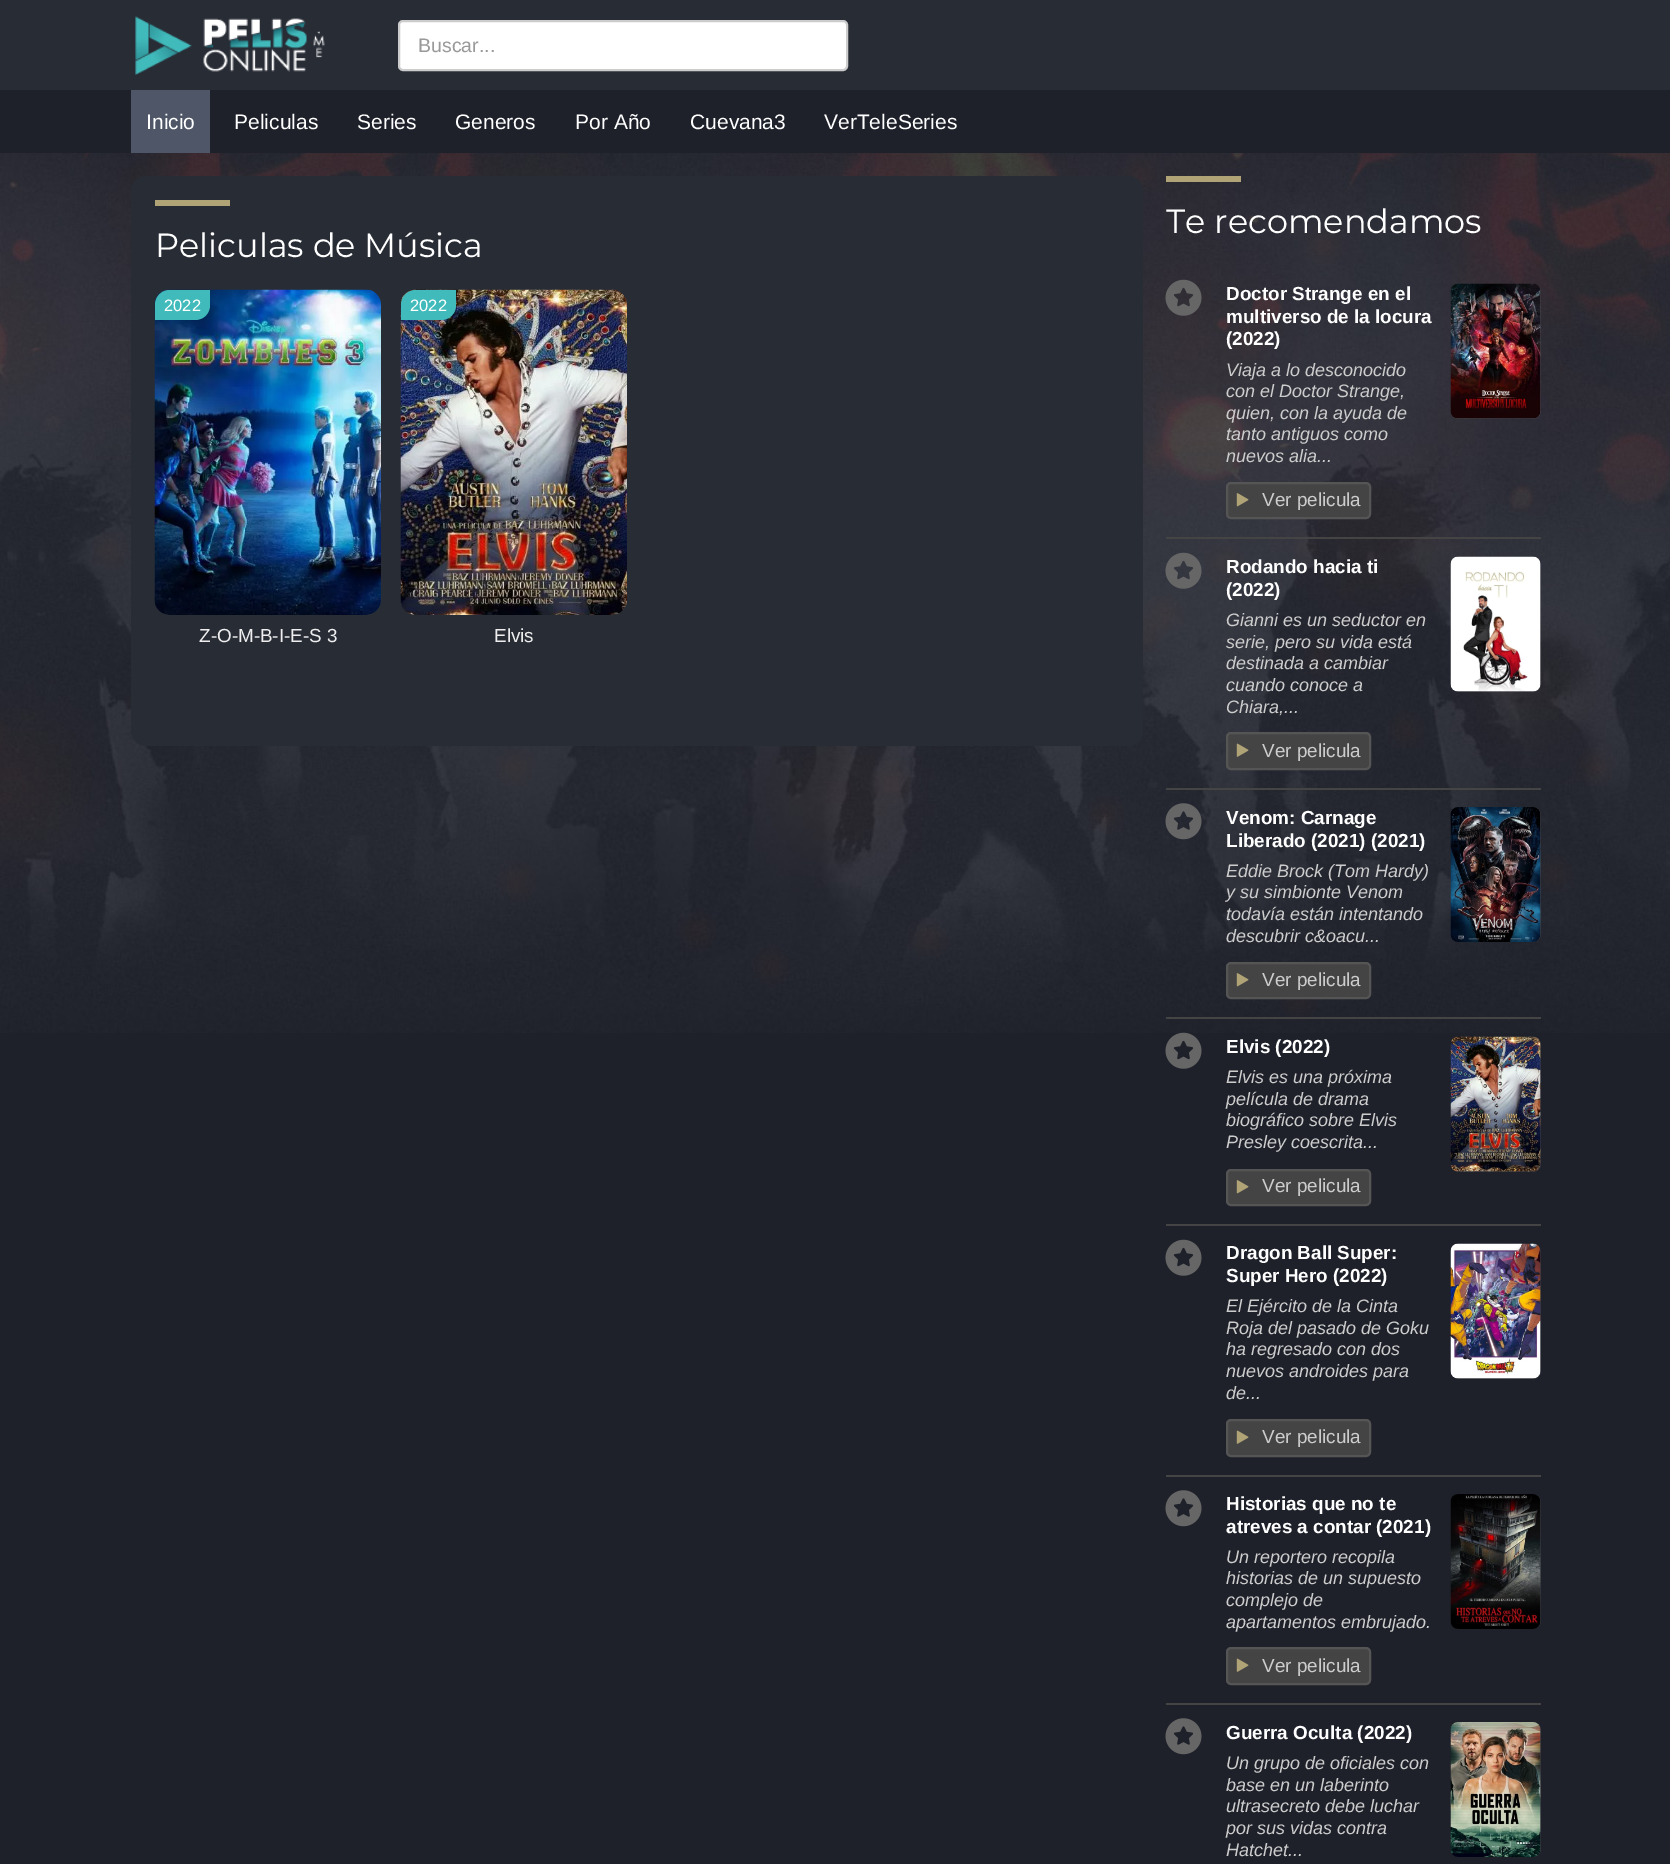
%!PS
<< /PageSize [1670 1864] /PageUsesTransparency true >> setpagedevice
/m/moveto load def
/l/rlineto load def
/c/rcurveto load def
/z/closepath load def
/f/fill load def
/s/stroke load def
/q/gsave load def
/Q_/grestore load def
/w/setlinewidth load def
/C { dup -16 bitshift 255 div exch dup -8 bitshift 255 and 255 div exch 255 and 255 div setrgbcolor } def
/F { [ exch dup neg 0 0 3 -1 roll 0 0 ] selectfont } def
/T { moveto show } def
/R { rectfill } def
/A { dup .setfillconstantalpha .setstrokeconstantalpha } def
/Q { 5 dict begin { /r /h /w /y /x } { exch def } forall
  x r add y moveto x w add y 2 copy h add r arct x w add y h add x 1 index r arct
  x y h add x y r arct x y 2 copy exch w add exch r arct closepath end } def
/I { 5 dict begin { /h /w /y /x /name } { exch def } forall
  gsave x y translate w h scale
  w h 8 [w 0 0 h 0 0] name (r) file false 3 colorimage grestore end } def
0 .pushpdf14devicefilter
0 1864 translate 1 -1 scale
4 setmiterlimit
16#1E212A C
0 0 1670 1864 R
(1.rgb) 0 153 1670 880 I
16#282C35 C
0 0 1670 90 R
(2.rgb) 135 16 190 59 I
16#FFFFFF C
399 21 448 49 4 Q q f Q_
16#CCCCCC C
2 w
s
/LiberationSans-Regular 19.5 F
16#999999 C
(Buscar...) 418 52 T
16#4E5667 C
131 90 79 63 R
/LiberationSans-Regular 21 F
16#FFFFFF C
(Inicio) 146 129 T
(Peliculas) 234 129 T
(Series) 357 129 T
(Generos) 455 129 T
(Por Año) 575 129 T
(Cuevana3) 690 129 T
(VerTeleSeries) 824 129 T
16#282C35 C
131 176 1012 570 15 Q f
16#B0A376 C
155 200 75 6 R
/Montserrat-Regular 33.5 F
16#FFFFFF C
(Peliculas de Música) 155 257 T
16#3E4149 C
155 290 226 325 15 Q f
(3.rgb) 154 289 227 326 I
16#41BABB C
170 290 m 40 0 l 0 15 l 0 8.5 -6.5 15 -15 15 c -40 0 l 0 -15 l 0 -8.5 6.5 -15 15 -15 c z f
/LiberationSans-Regular 16.5 F
16#FFFFFF C
(2022) 164 311 T
/LiberationSans-Regular 18.9 F
16#EEEEEE C
(Z-O-M-B-I-E-S 3) 199 642 T
16#3E4149 C
401 290 226 325 15 Q f
(4.rgb) 400 289 227 326 I
16#41BABB C
416 290 m 40 0 l 0 15 l 0 8.5 -6.5 15 -15 15 c -40 0 l 0 -15 l 0 -8.5 6.5 -15 15 -15 c z f
/LiberationSans-Regular 16.5 F
16#FFFFFF C
(2022) 410 311 T
/LiberationSans-Regular 18.9 F
16#EEEEEE C
(Elvis) 494 642 T
16#B0A376 C
1166 176 75 6 R
/Montserrat-Regular 33.5 F
16#FFFFFF C
(Te recomendamos) 1166 233 T
16#444444 C
1166 537 375 2 R
(5.rgb) 1165 279 37 37 I
/LiberationSans-Bold 18.9 F
16#FFFFFF C
(Doctor Strange en el) 1226 300 T
(multiverso de la locura) 1226 323 T
(\(2022\)) 1226 345 T
/LiberationSans-Italic 18 F
16#CCCCCC C
(Viaja a lo desconocido) 1226 376 T
(con el Doctor Strange,) 1226 397 T
(quien, con la ayuda de) 1226 419 T
(tanto antiguos como) 1226 440 T
(nuevos alia...) 1226 462 T
16#444444 C
1227 483 143 35 4 Q q f Q_
16#555555 C
s
(6.rgb) 1236 493 13 14 I
/LiberationSans-Regular 18.9 F
16#CCCCCC C
(Ver pelicula) 1262 506 T
0.1 A
16#FFFFFF C
1451 284 90 135 8 Q f
1 A
(7.rgb) 1450 283 91 136 I
16#444444 C
1166 788 375 2 R
(8.rgb) 1165 552 37 37 I
/LiberationSans-Bold 18.9 F
16#FFFFFF C
(Rodando hacia ti) 1226 573 T
(\(2022\)) 1226 596 T
/LiberationSans-Italic 18 F
16#CCCCCC C
(Gianni es un seductor en) 1226 626 T
(serie, pero su vida está) 1226 648 T
(destinada a cambiar) 1226 669 T
(cuando conoce a) 1226 691 T
(Chiara,...) 1226 713 T
16#444444 C
1227 733 143 36 4 Q q f Q_
16#555555 C
s
(9.rgb) 1236 743 13 14 I
/LiberationSans-Regular 18.9 F
16#CCCCCC C
(Ver pelicula) 1262 757 T
0.1 A
16#FFFFFF C
1451 557 90 135 8 Q f
1 A
(10.rgb) 1450 556 91 136 I
16#444444 C
1166 1017 375 2 R
(11.rgb) 1165 803 37 37 I
/LiberationSans-Bold 18.9 F
16#FFFFFF C
(Venom: Carnage) 1226 824 T
(Liberado \(2021\) \(2021\)) 1226 847 T
/LiberationSans-Italic 18 F
16#CCCCCC C
(Eddie Brock \(Tom Hardy\)) 1226 877 T
(y su simbionte Venom) 1226 898 T
(todavía están intentando) 1226 920 T
(descubrir c&oacu...) 1226 942 T
16#444444 C
1227 963 143 35 4 Q q f Q_
16#555555 C
s
(6.rgb) 1236 973 13 14 I
/LiberationSans-Regular 18.9 F
16#CCCCCC C
(Ver pelicula) 1262 986 T
0.1 A
16#FFFFFF C
1451 807 90 135 8 Q f
1 A
(12.rgb) 1450 807 91 135 I
16#444444 C
1166 1224 375 2 R
(13.rgb) 1165 1032 37 37 I
/LiberationSans-Bold 18.9 F
16#FFFFFF C
(Elvis \(2022\)) 1226 1053 T
/LiberationSans-Italic 18 F
16#CCCCCC C
(Elvis es una próxima) 1226 1083 T
(película de drama) 1226 1105 T
(biográfico sobre Elvis) 1226 1126 T
(Presley coescrita...) 1226 1148 T
16#444444 C
1227 1170 143 35 4 Q q f Q_
16#555555 C
s
(6.rgb) 1236 1180 13 14 I
/LiberationSans-Regular 18.9 F
16#CCCCCC C
(Ver pelicula) 1262 1192 T
16#35373F C
1451 1037 90 135 8 Q f
(14.rgb) 1450 1036 91 136 I
16#444444 C
1166 1475 375 2 R
(15.rgb) 1165 1239 37 37 I
/LiberationSans-Bold 18.9 F
16#FFFFFF C
(Dragon Ball Super:) 1226 1259 T
(Super Hero \(2022\)) 1226 1282 T
/LiberationSans-Italic 18 F
16#CCCCCC C
(El Ejército de la Cinta) 1226 1312 T
(Roja del pasado de Goku) 1226 1334 T
(ha regresado con dos) 1226 1355 T
(nuevos androides para) 1226 1377 T
(de...) 1226 1399 T
16#444444 C
1227 1420 143 36 4 Q q f Q_
16#555555 C
s
(9.rgb) 1236 1430 13 14 I
/LiberationSans-Regular 18.9 F
16#CCCCCC C
(Ver pelicula) 1262 1443 T
16#35373F C
1451 1244 90 135 8 Q f
(16.rgb) 1450 1243 91 136 I
16#444444 C
1166 1703 375 2 R
(17.rgb) 1165 1490 37 37 I
/LiberationSans-Bold 18.9 F
16#FFFFFF C
(Historias que no te) 1226 1510 T
(atreves a contar \(2021\)) 1226 1533 T
/LiberationSans-Italic 18 F
16#CCCCCC C
(Un reportero recopila) 1226 1563 T
(historias de un supuesto) 1226 1584 T
(complejo de) 1226 1606 T
(apartamentos embrujado.) 1226 1628 T
16#444444 C
1227 1648 143 36 4 Q q f Q_
16#555555 C
s
(9.rgb) 1236 1658 13 14 I
/LiberationSans-Regular 18.9 F
16#CCCCCC C
(Ver pelicula) 1262 1672 T
16#35373F C
1451 1494 90 135 8 Q f
(18.rgb) 1450 1494 91 135 I
(17.rgb) 1165 1718 37 37 I
/LiberationSans-Bold 18.9 F
16#FFFFFF C
(Guerra Oculta \(2022\)) 1226 1739 T
/LiberationSans-Italic 18 F
16#CCCCCC C
(Un grupo de oficiales con) 1226 1769 T
(base en un laberinto) 1226 1791 T
(ultrasecreto debe luchar) 1226 1812 T
(por sus vidas contra) 1226 1834 T
(Hatchet...) 1226 1856 T
16#35373F C
1451 1722 90 135 8 Q f
(19.rgb) 1450 1722 91 135 I
.poppdf14devicefilter showpage
